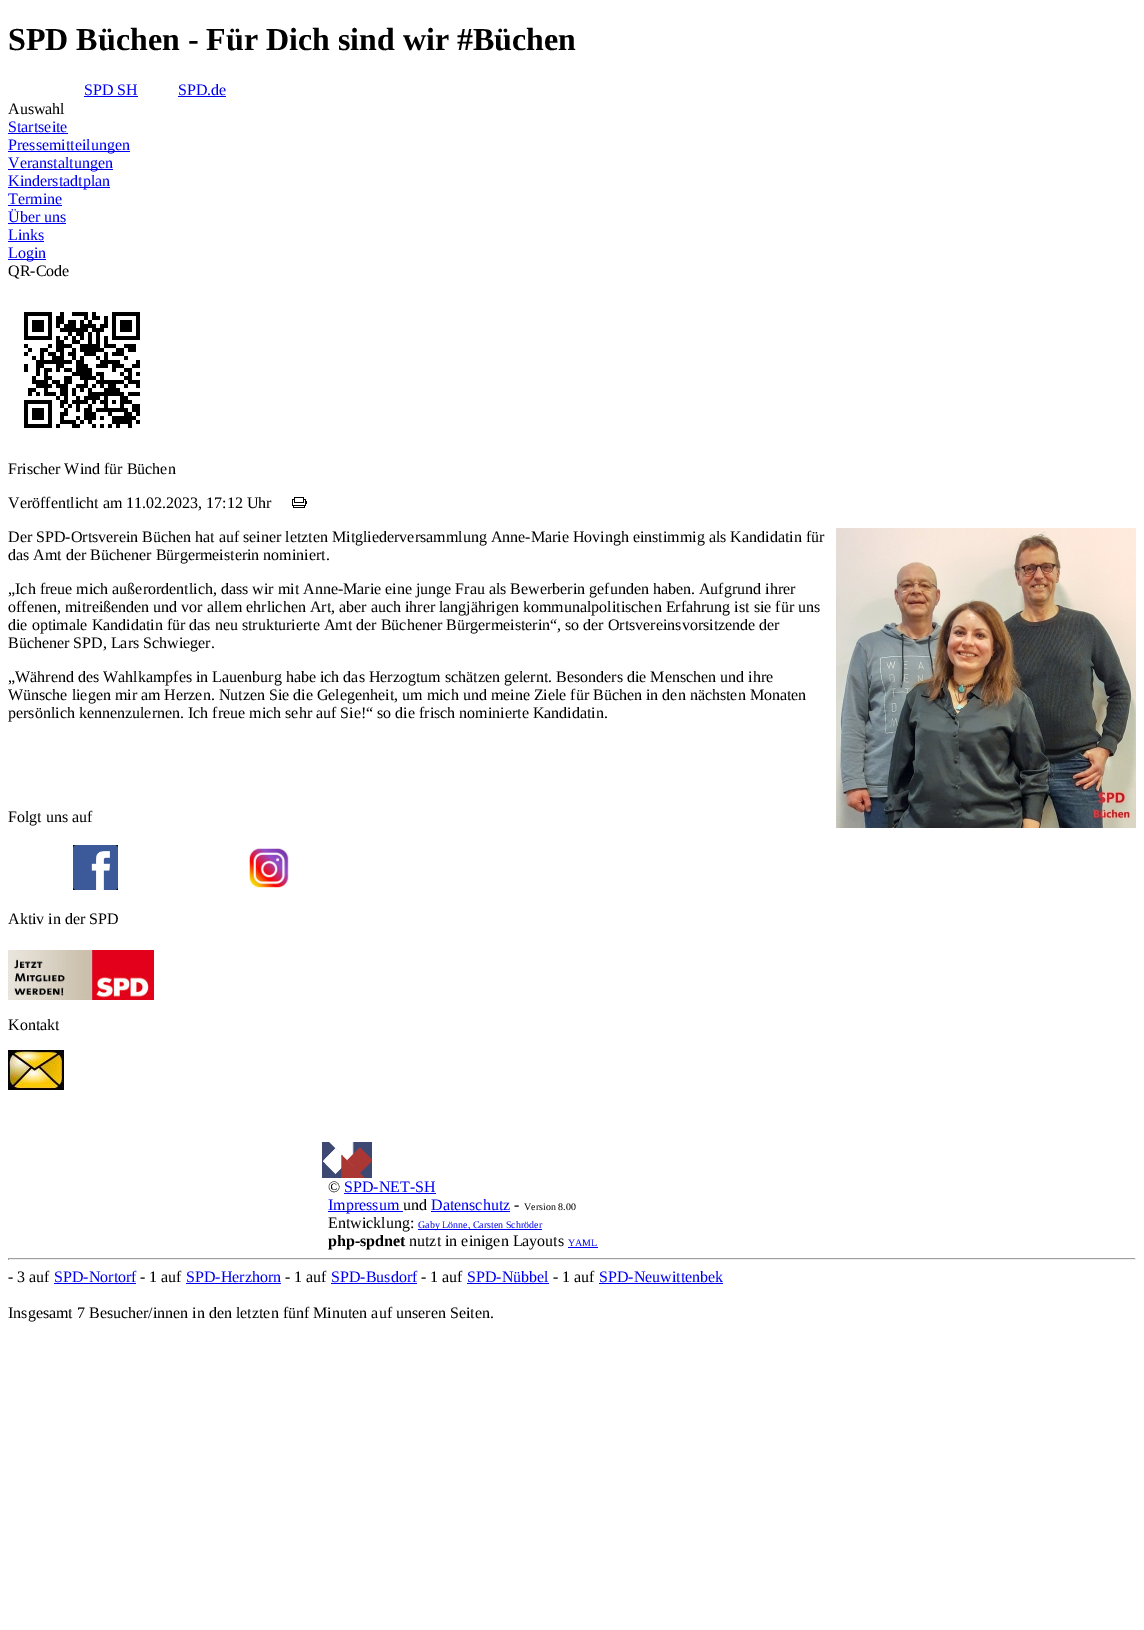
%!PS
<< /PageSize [1144 1630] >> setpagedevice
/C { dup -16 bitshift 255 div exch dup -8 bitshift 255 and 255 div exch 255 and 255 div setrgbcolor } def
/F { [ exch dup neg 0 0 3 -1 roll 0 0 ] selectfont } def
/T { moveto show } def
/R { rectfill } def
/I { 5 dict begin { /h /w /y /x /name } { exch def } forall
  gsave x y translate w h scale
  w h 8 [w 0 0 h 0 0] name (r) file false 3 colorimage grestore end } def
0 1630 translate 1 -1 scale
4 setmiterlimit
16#FFFFFF C
0 0 1144 1630 R
/LiberationSerif-Bold 32 F
16#000000 C
(SPD Büchen - Für Dich sind wir #Büchen) 8 50 T
/LiberationSerif-Regular 16 F
16#0000EE C
(SPD SH) 84 95 T
84 96 54 1 R
(SPD.de) 178 95 T
178 96 48 1 R
16#000000 C
(Auswahl) 8 114 T
16#0000EE C
(Startseite) 8 132 T
8 133 60 1 R
8 151 122 1 R
(Pressemitteilungen) 8 150 T
8 169 105 1 R
(Veranstaltungen) 8 168 T
8 187 102 1 R
(Kinderstadtplan) 8 186 T
(Termine) 8 204 T
8 205 54 1 R
(Über uns) 8 222 T
8 223 58 1 R
(Links) 8 240 T
8 241 36 1 R
8 259 38 1 R
(Login) 8 258 T
16#000000 C
(QR-Code) 8 276 T
(1.rgb) 24 312 116 116 I
(Frischer Wind für Büchen) 8 474 T
(Veröffentlicht am 11.02.2023, 17:12 Uhr) 8 508 T
(2.rgb) 292 497 15 11 I
(Der SPD-Ortsverein Büchen hat auf seiner letzten Mitgliederversammlung Anne-Marie Hovingh einstimmig als Kandidatin für) 8 542 T
(das Amt der Büchener Bürgermeisterin nominiert.) 8 560 T
(3.rgb) 836 528 300 300 I
(„Ich freue mich außerordentlich, dass wir mit Anne-Marie eine junge Frau als Bewerberin gefunden haben. Aufgrund ihrer) 8 594 T
(offenen, mitreißenden und vor allem ehrlichen Art, aber auch ihrer langjährigen kommunalpolitischen Erfahrung ist sie für uns) 8 612 T
(die optimale Kandidatin für das neu strukturierte Amt der Büchener Bürgermeisterin“, so der Ortsvereinsvorsitzende der) 8 630 T
(Büchener SPD, Lars Schwieger.) 8 648 T
(„Während des Wahlkampfes in Lauenburg habe ich das Herzogtum schätzen gelernt. Besonders die Menschen und ihre) 8 682 T
(Wünsche liegen mir am Herzen. Nutzen Sie die Gelegenheit, um mich und meine Ziele für Büchen in den nächsten Monaten) 8 700 T
(persönlich kennenzulernen. Ich freue mich sehr auf Sie!“ so die frisch nominierte Kandidatin.) 8 718 T
(Folgt uns auf) 8 822 T
(4.rgb) 73 845 45 45 I
(5.rgb) 249 848 40 40 I
(Aktiv in der SPD) 8 924 T
(6.rgb) 8 950 146 50 I
(Kontakt) 8 1030 T
(7.rgb) 8 1050 56 40 I
(8.rgb) 322 1142 50 36 I
(©) 328 1192 T
16#0000EE C
(SPD-NET-SH) 344 1192 T
344 1193 92 1 R
328 1211 75 1 R
(Impressum) 328 1210 T
16#000000 C
(und) 403 1210 T
16#0000EE C
(Datenschutz) 431 1210 T
431 1211 79 1 R
16#000000 C
(-) 514 1210 T
/LiberationSerif-Regular 10 F
(Version 8.00) 524 1210 T
/LiberationSerif-Regular 16 F
(Entwicklung:) 328 1228 T
16#0000EE C
418 1229 124 1 R
/LiberationSerif-Regular 10 F
(Gaby Lönne, Carsten Schröder) 418 1228 T
/LiberationSerif-Bold 16 F
16#000000 C
(php-spdnet) 328 1246 T
/LiberationSerif-Regular 16 F
(nutzt in einigen Layouts) 409 1246 T
/LiberationSerif-Regular 10 F
16#0000EE C
(YAML) 568 1246 T
568 1247 30 1 R
16#9F9F9F C
8 1258 1128 1 R
16#EEEEEE C
1135 1258 1 2 R
8 1259 1128 1 R
16#9F9F9F C
8 1258 1 2 R
/LiberationSerif-Regular 16 F
16#000000 C
(- 3 auf) 8 1282 T
16#0000EE C
(SPD-Nortorf) 54 1282 T
54 1283 82 1 R
16#000000 C
(- 1 auf) 140 1282 T
16#0000EE C
(SPD-Herzhorn) 186 1282 T
186 1283 95 1 R
16#000000 C
(- 1 auf) 285 1282 T
16#0000EE C
(SPD-Busdorf) 331 1282 T
331 1283 86 1 R
16#000000 C
(- 1 auf) 421 1282 T
16#0000EE C
(SPD-Nübbel) 467 1282 T
467 1283 82 1 R
16#000000 C
(- 1 auf) 553 1282 T
16#0000EE C
(SPD-Neuwittenbek) 599 1282 T
599 1283 124 1 R
16#000000 C
(Insgesamt 7 Besucher/innen in den letzten fünf Minuten auf unseren Seiten.) 8 1318 T
showpage
